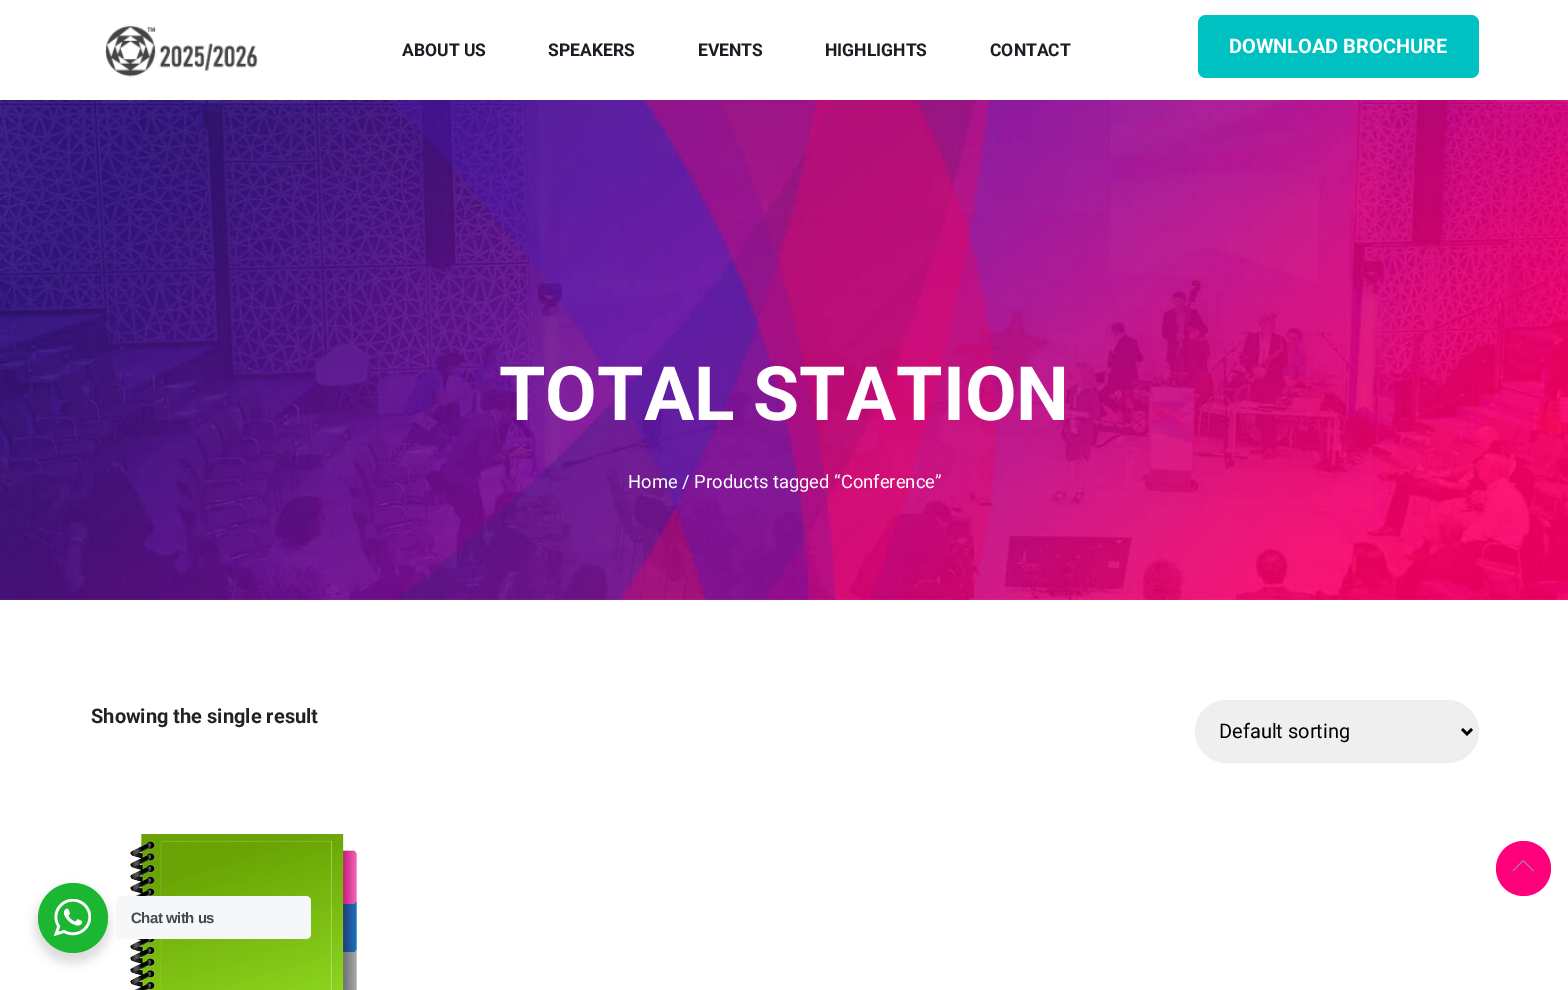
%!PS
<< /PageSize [1568 990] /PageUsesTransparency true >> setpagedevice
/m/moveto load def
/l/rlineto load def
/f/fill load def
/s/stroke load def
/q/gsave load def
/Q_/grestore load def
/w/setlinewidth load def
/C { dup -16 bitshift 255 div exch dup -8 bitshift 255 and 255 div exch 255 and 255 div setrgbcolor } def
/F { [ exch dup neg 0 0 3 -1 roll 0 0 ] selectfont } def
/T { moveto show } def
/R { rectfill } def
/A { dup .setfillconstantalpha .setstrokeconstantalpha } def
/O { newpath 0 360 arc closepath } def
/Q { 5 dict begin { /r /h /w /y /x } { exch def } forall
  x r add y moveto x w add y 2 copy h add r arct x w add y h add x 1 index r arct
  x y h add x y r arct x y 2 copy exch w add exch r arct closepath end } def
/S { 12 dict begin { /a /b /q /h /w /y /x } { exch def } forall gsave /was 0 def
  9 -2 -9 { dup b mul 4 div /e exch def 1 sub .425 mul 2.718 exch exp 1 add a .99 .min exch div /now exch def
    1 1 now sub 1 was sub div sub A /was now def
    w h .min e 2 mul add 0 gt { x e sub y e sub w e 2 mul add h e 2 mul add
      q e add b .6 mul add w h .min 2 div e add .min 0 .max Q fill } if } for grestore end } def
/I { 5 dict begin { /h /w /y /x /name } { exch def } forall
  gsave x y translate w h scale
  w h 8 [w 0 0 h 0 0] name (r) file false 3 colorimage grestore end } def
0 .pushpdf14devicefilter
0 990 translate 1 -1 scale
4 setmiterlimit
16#FFFFFF C
0 0 1568 990 R
(1.rgb) 104 25 154 52 I
/Roboto-Bold 17.5 F
16#1C1C24 C
(ABOUT US) 402 56 T
(SPEAKERS) 548 56 T
(EVENTS) 698 56 T
(HIGHLIGHTS) 825 56 T
(CONTACT) 990 56 T
16#00C1C1 C
1198 15 281 63 8 Q f
/Roboto-Bold 20 F
16#FFFFFF C
(DOWNLOAD BROCHURE) 1229 53 T
(2.rgb) 0 100 1568 500 I
/Roboto-Bold 75 F
(TOTAL STATION) 499 420 T
/Roboto-Regular 18.4 F
(Home / Products tagged “Conference”) 628 488 T
/Roboto-Bold 20 F
16#222222 C
(Showing the single result) 91 723 T
16#EFEFEF C
1195.5 700.5 283 62 31 Q q f Q_
16#EEEEEE C
s
16#000000 C
2.5 w
1462 729 m 5 5 l 5 -5 l s
/Roboto-Regular 20 F
(Default sorting) 1219 738 T
(3.rgb) 130 834 227 156 I
16#FF007A C
1523.5 868.5 27.5 O f
(4.rgb) 1512 860 22 12 I
16#000000 C
35 888 75 75 37.5 5 .14 S
16#1BB732 C
73 918 35 O f
(5.rgb) 54 899 37 37 I
16#F5F7F9 C
116 896 195 43 5 Q f
/LiberationSans-Bold 15 F
16#43474E C
131 923 m -.5 0 (Chat with us) ashow
.poppdf14devicefilter showpage
